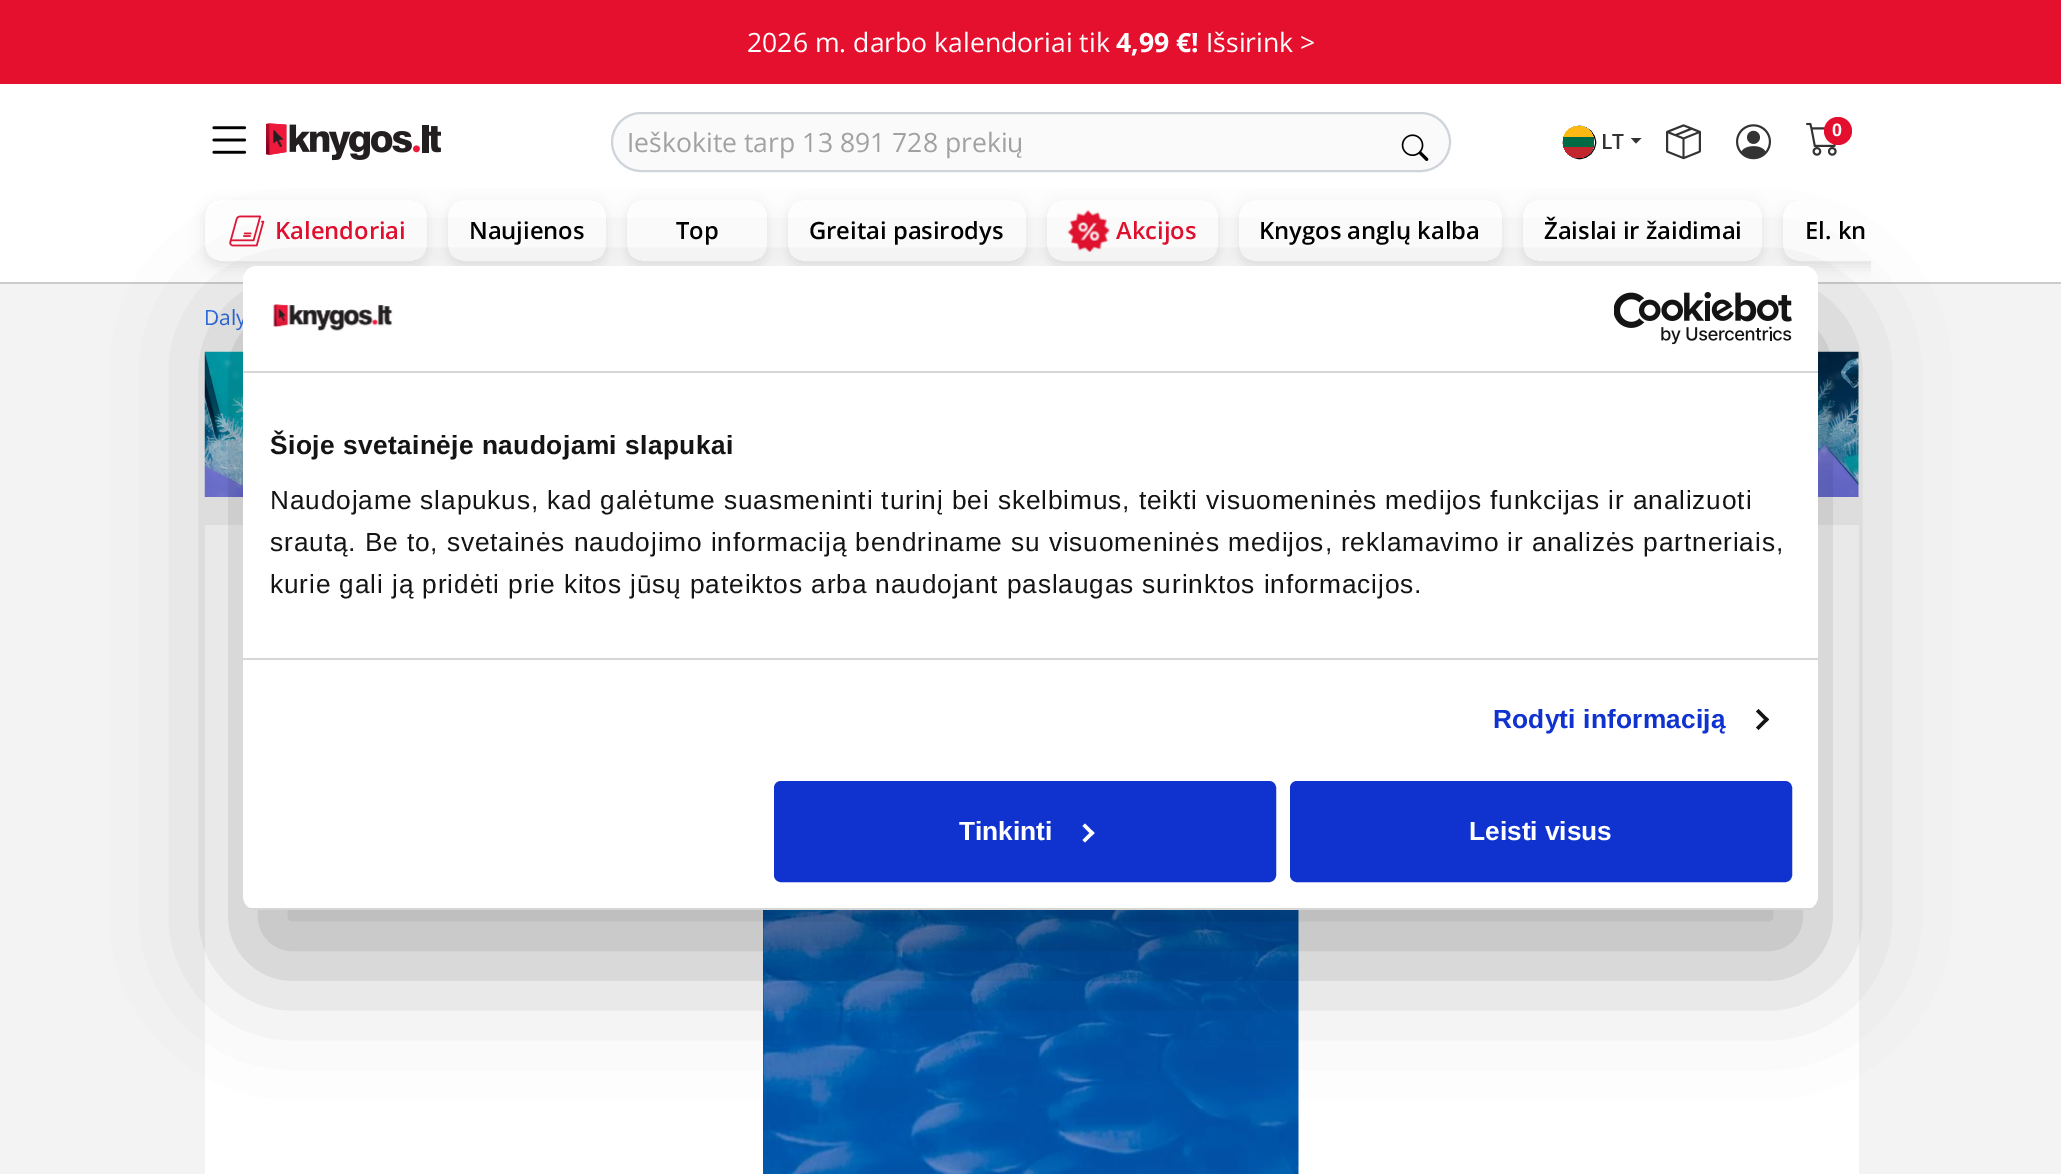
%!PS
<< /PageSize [2061 1174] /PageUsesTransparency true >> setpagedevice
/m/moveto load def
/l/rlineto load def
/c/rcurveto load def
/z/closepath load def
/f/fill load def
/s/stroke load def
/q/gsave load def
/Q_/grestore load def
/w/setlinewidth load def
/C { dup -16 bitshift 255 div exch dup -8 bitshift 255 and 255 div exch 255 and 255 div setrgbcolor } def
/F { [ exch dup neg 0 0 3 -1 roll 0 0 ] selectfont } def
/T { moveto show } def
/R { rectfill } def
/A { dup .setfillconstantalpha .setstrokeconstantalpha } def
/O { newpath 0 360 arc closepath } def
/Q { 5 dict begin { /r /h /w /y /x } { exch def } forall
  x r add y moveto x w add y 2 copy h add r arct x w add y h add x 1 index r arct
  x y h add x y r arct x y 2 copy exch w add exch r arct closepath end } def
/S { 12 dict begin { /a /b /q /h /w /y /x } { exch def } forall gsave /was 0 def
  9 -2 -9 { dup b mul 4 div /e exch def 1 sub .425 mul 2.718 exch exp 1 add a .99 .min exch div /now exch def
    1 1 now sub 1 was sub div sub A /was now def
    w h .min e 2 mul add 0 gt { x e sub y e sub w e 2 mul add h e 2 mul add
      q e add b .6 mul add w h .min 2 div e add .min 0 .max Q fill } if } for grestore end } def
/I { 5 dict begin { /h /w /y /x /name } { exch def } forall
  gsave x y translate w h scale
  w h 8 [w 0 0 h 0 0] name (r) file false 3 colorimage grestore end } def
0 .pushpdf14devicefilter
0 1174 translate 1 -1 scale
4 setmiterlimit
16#F3F3F3 C
0 0 2061 1174 R
16#E4102E C
0 0 2061 84 R
/OpenSans-Regular 26.6 F
16#FFFFFF C
(2026 m. darbo kalendoriai tik) 747 52 T
/OpenSans-Bold 26.6 F
(4,99 €!) 1116 52 T
/OpenSans-Regular 26.6 F
(Išsirink >) 1206 52 T
0 84 2061 198 R
16#CCCCCC C
0 282 2061 2 R
(1.rgb) 212 126 35 28 I
(2.rgb) 266 123 175 38 I
16#FAFAFA C
612 113 838 58 29 Q q f Q_
16#CED4DA C
2 w
s
16#A1A1A1 C
(Ieškokite tarp 13 891 728 prekių) 627 152 T
(3.rgb) 1401 134 28 27 I
16#000000 C
.9 w
1579.5 142.5 16.05 O s
q
1563 126 31 32 15.5 Q clip newpath
16#C1272D C
1563 147 31 11 R
16#006A44 C
1563 137 31 10 R
16#FDB913 C
1563 126 31 11 R
Q_
/OpenSans-SemiBold 21 F
16#333333 C
(LT) 1601 149 T
1631 138 m 10.5 0 l -5.5 5.5 l z f
(4.rgb) 1666 124 35 36 I
(5.rgb) 1736 124 35 36 I
(6.rgb) 1806 122 31 34 I
16#E40F2F C
1838 131 14 O f
/LiberationSans-Bold 18 F
16#FFFFFF C
(0) 1832 136 T
q
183 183 m 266 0 l 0 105 l -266 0 l z 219 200 m 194 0 l 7.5 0 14 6.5 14 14 c 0 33 l 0 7.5 -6.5 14 -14 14 c -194 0 l -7.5 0 -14 -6.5 -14 -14 c 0 -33 l 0 -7.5 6.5 -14 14 -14 c z eoclip newpath
16#000000 C
205 205 222 61 14 7 .1 S
Q_
(7.rgb) 229 215 36 32 I
/OpenSans-SemiBold 23.75 F
16#E40F2F C
(Kalendoriai) 275 239 T
q
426 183 m 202 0 l 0 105 l -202 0 l z 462 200 m 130 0 l 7.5 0 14 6.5 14 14 c 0 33 l 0 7.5 -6.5 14 -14 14 c -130 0 l -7.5 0 -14 -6.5 -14 -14 c 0 -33 l 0 -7.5 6.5 -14 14 -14 c z eoclip newpath
16#000000 C
448 205 158 61 14 7 .1 S
Q_
16#000000 C
(Naujienos) 469 239 T
q
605 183 m 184 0 l 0 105 l -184 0 l z 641 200 m 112 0 l 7.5 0 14 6.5 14 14 c 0 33 l 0 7.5 -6.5 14 -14 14 c -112 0 l -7.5 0 -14 -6.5 -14 -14 c 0 -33 l 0 -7.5 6.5 -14 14 -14 c z eoclip newpath
627 205 140 61 14 7 .1 S
Q_
(Top) 676 239 T
q
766 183 m 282 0 l 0 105 l -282 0 l z 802 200 m 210 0 l 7.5 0 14 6.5 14 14 c 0 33 l 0 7.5 -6.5 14 -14 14 c -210 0 l -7.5 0 -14 -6.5 -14 -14 c 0 -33 l 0 -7.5 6.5 -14 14 -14 c z eoclip newpath
788 205 238 61 14 7 .1 S
Q_
(Greitai pasirodys) 809 239 T
q
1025 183 m 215 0 l 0 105 l -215 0 l z 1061 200 m 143 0 l 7.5 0 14 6.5 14 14 c 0 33 l 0 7.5 -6.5 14 -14 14 c -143 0 l -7.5 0 -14 -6.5 -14 -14 c 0 -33 l 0 -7.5 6.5 -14 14 -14 c z eoclip newpath
1047 205 171 61 14 7 .1 S
Q_
(8.rgb) 1067 209 43 43 I
16#E40F2F C
(Akcijos) 1116 239 T
q
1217 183 m 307 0 l 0 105 l -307 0 l z 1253 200 m 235 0 l 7.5 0 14 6.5 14 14 c 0 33 l 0 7.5 -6.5 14 -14 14 c -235 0 l -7.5 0 -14 -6.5 -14 -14 c 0 -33 l 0 -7.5 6.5 -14 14 -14 c z eoclip newpath
16#000000 C
1239 205 263 61 14 7 .1 S
Q_
16#000000 C
(Knygos anglų kalba) 1259 239 T
q
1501 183 m 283 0 l 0 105 l -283 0 l z 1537 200 m 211 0 l 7.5 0 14 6.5 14 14 c 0 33 l 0 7.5 -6.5 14 -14 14 c -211 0 l -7.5 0 -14 -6.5 -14 -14 c 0 -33 l 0 -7.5 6.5 -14 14 -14 c z eoclip newpath
1523 205 239 61 14 7 .1 S
Q_
(Žaislai ir žaidimai) 1544 239 T
q
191 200 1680 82 rectclip
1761 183 m 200 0 l 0 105 l -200 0 l z 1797 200 m 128 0 l 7.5 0 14 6.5 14 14 c 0 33 l 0 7.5 -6.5 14 -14 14 c -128 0 l -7.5 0 -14 -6.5 -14 -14 c 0 -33 l 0 -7.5 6.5 -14 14 -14 c z eoclip newpath
1783 205 156 61 14 7 .1 S
Q_
(El. kn) 1805 239 T
/OpenSans-Regular 21 F
16#2D6CE3 C
(Daly) 204 325 T
(9.rgb) 204 351 1655 146 I
16#FFFFFF C
205 525 1654 649 R
(10.rgb) 763 910 536 264 I
16#000000 C
243 322 1575 644 14 59.5 .3 S
16#FFFFFF C
243 266 1575 644 14 Q f
16#D6D6D6 C
243 371 1575 2 R
(11.rgb) 273 304 120 27 I
(12.rgb) 1614 292 178 53 I
243 658 1575 2 R
/LiberationSans-Bold 26.25 F
16#141414 C
270 454 m .45 0 (Šioje svetainėje naudojami slapukai) ashow
/LiberationSans-Regular 26.25 F
270 509 m .88 0 (Naudojame slapukus, kad galėtume suasmeninti turinį bei skelbimus, teikti visuomeninės medijos funkcijas ir analizuoti) ashow
270 551 m .88 0 (srautą. Be to, svetainės naudojimo informaciją bendriname su visuomeninės medijos, reklamavimo ir analizės partneriais,) ashow
270 593 m .88 0 (kurie gali ją pridėti prie kitos jūsų pateiktos arba naudojant paslaugas surinktos informacijos.) ashow
/LiberationSans-Bold 26.25 F
16#1032CF C
1493 728 m .2 0 (Rodyti informaciją) ashow
16#141414 C
1758.5 709 m 10.5 10.5 l -2.5 2.5 l -10.5 -10.5 l z f
1766.5 717 m 2.5 2.5 l -10.5 10.5 l -2.5 -2.5 l z f
q
243 266 1575 644 14 Q clip newpath
16#D6D6D6 C
243 908 1575 2 R
Q_
16#1032CF C
776 783 498 97 5 Q q f Q_
4 w
s
16#FFFFFF C
(Tinkinti) 959 840 T
1085 823.5 m 9.5 9.5 l -2.5 2.5 l -9.5 -9.5 l z f
1092 830.5 m 2.5 2.5 l -9.5 9.5 l -2.5 -2.5 l z f
16#1032CF C
1292 783 498 97 5 Q q f Q_
s
16#FFFFFF C
(Leisti visus) 1469 840 T
.poppdf14devicefilter showpage
